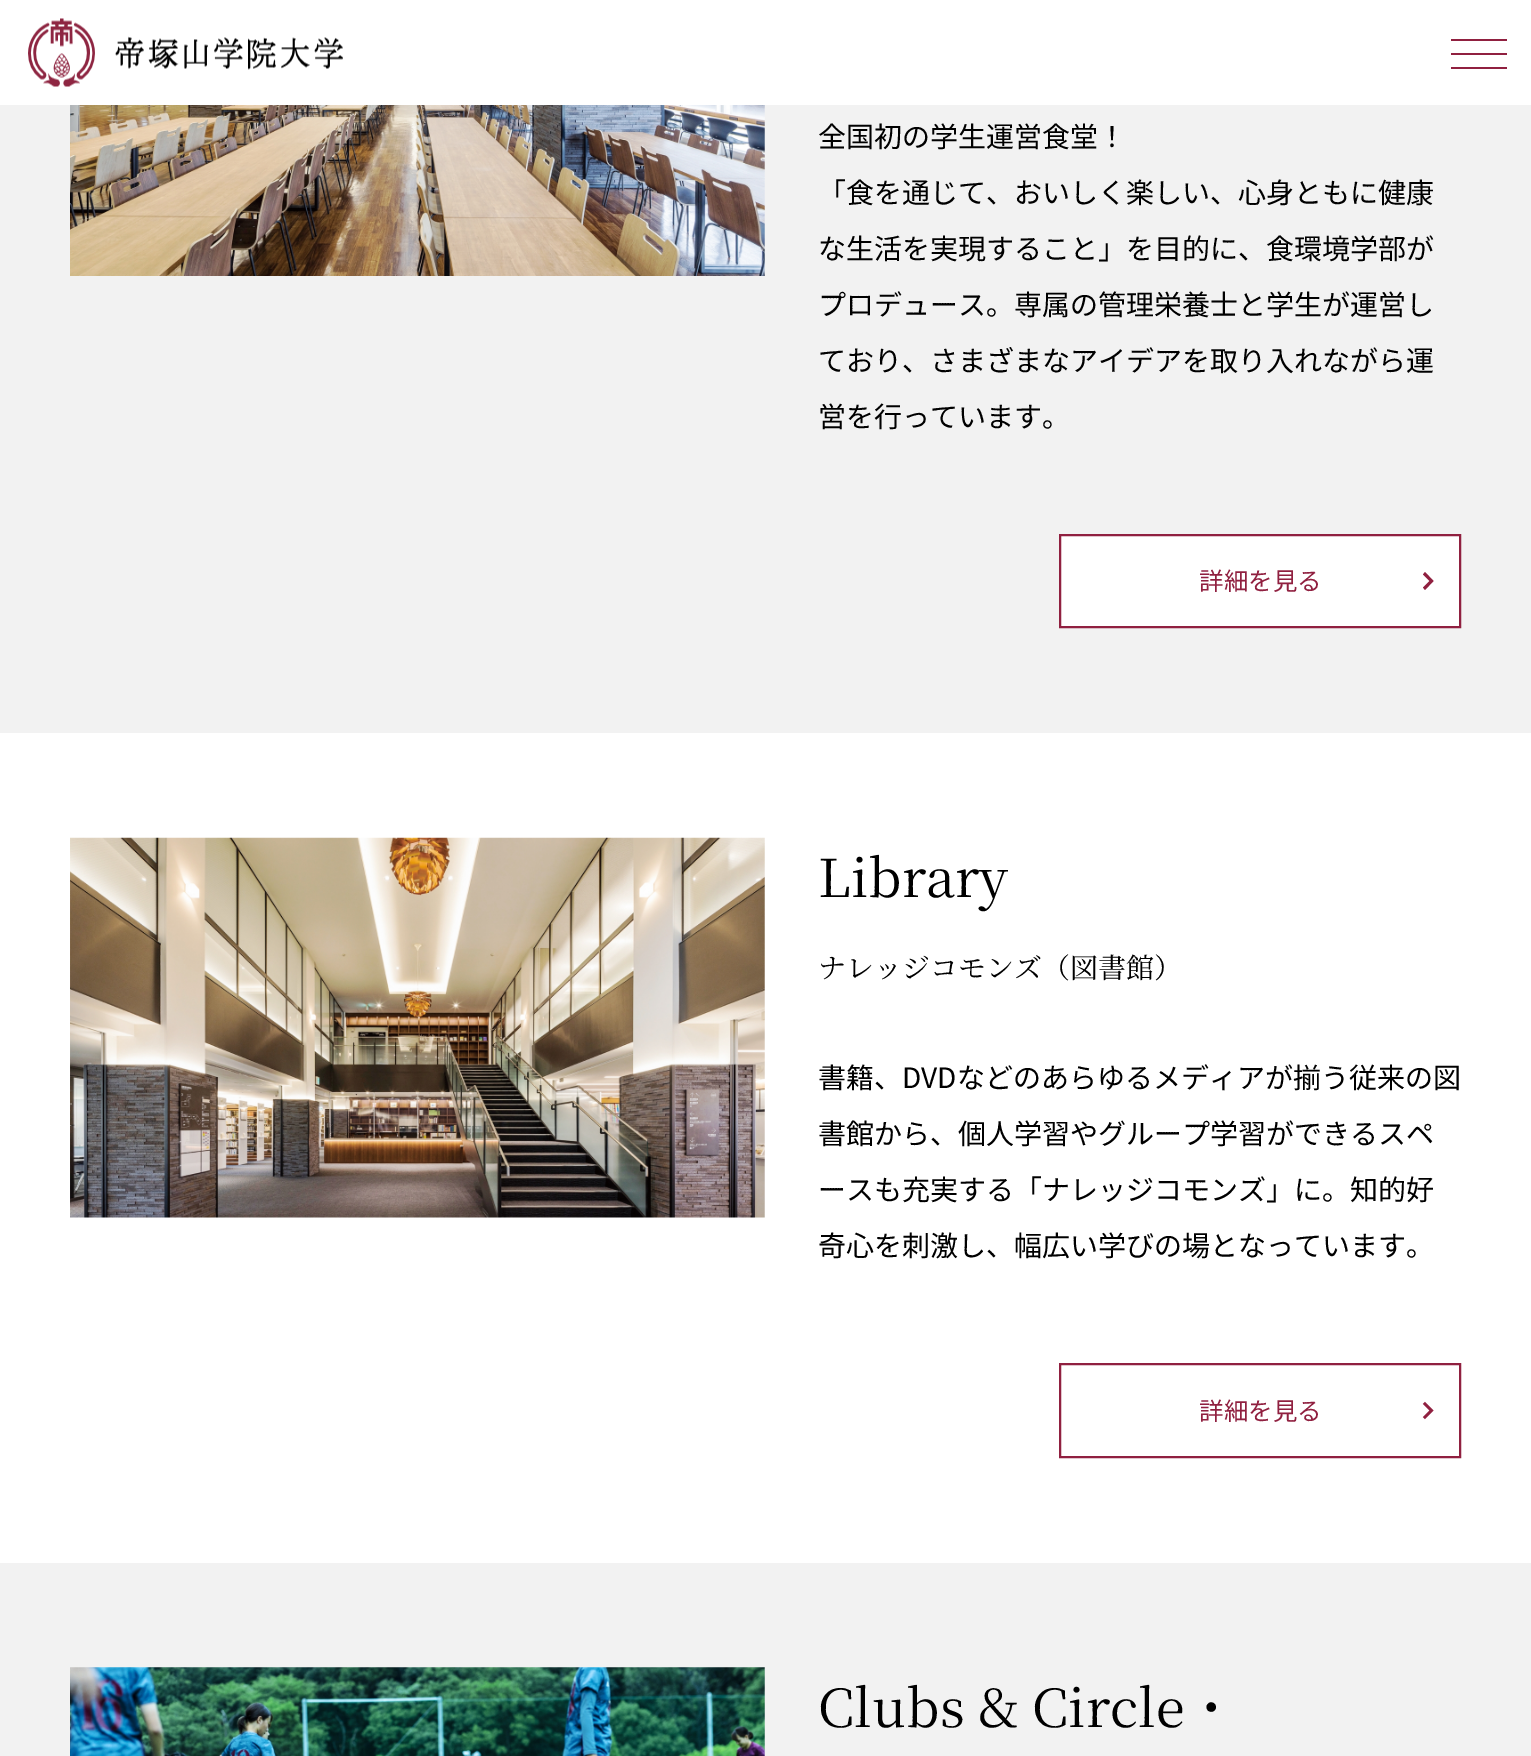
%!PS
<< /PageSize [1531 1756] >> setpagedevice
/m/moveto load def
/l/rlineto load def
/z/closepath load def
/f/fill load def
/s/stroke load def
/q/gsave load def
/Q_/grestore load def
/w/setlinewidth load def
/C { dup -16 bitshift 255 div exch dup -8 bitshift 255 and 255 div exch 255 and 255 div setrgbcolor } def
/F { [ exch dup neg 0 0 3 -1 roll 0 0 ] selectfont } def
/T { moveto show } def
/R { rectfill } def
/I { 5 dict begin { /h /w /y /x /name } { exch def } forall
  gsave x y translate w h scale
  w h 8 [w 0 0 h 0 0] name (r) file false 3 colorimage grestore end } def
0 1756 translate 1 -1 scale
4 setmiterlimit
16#FFFFFF C
0 0 1531 1756 R
(1.rgb) 28 18 315 69 I
16#902040 C
1451 53 56 2 R
1451 39 56 2 R
1451 67 56 2 R
16#F2F2F2 C
0 105 1531 628 R
(2.rgb) 70 105 695 171 I
/NotoSansJP-Regular 28 F
16#000000 C
(全国初の学生運営食堂！) 818 147 T
(「食を通じて、おいしく楽しい、心身ともに健康) 818 203 T
(な生活を実現すること」を目的に、食環境学部が) 818 259 T
(プロデュース。専属の管理栄養士と学生が運営し) 818 315 T
(ており、さまざまなアイデアを取り入れながら運) 818 371 T
(営を行っています。) 818 427 T
16#FFFFFF C
1060 535 m 400 0 l 0 92 l -400 0 l z q f Q_
16#902040 C
2 w
s
/NotoSansJP-Regular 24.5 F
(詳細を見る) 1199 590 T
1425 590 m -2 -2.5 l 6.5 -6.5 l -6.5 -6.5 l 2 -2.5 l 8.5 9 l z f
(3.rgb) 70 837 695 381 I
/NotoSerifJP-Regular 52.5 F
16#000000 C
(Library) 818 897 T
/NotoSerifJP-Regular 28 F
(ナレッジコモンズ（図書館）) 818 978 T
/NotoSansJP-Regular 28 F
(書籍、DVDなどのあらゆるメディアが揃う従来の図) 818 1088 T
(書館から、個人学習やグループ学習ができるスペ) 818 1144 T
(ースも充実する「ナレッジコモンズ」に。知的好) 818 1200 T
(奇心を刺激し、幅広い学びの場となっています。) 818 1256 T
16#902040 C
1060 1364 400 93 rectstroke
/NotoSansJP-Regular 24.5 F
(詳細を見る) 1199 1420 T
(4.rgb) 1422 1401 12 19 I
16#F2F2F2 C
0 1563 1531 193 R
(5.rgb) 70 1667 695 89 I
/NotoSerifJP-Regular 52.5 F
16#000000 C
(Clubs & Circle・) 818 1727 T
showpage
